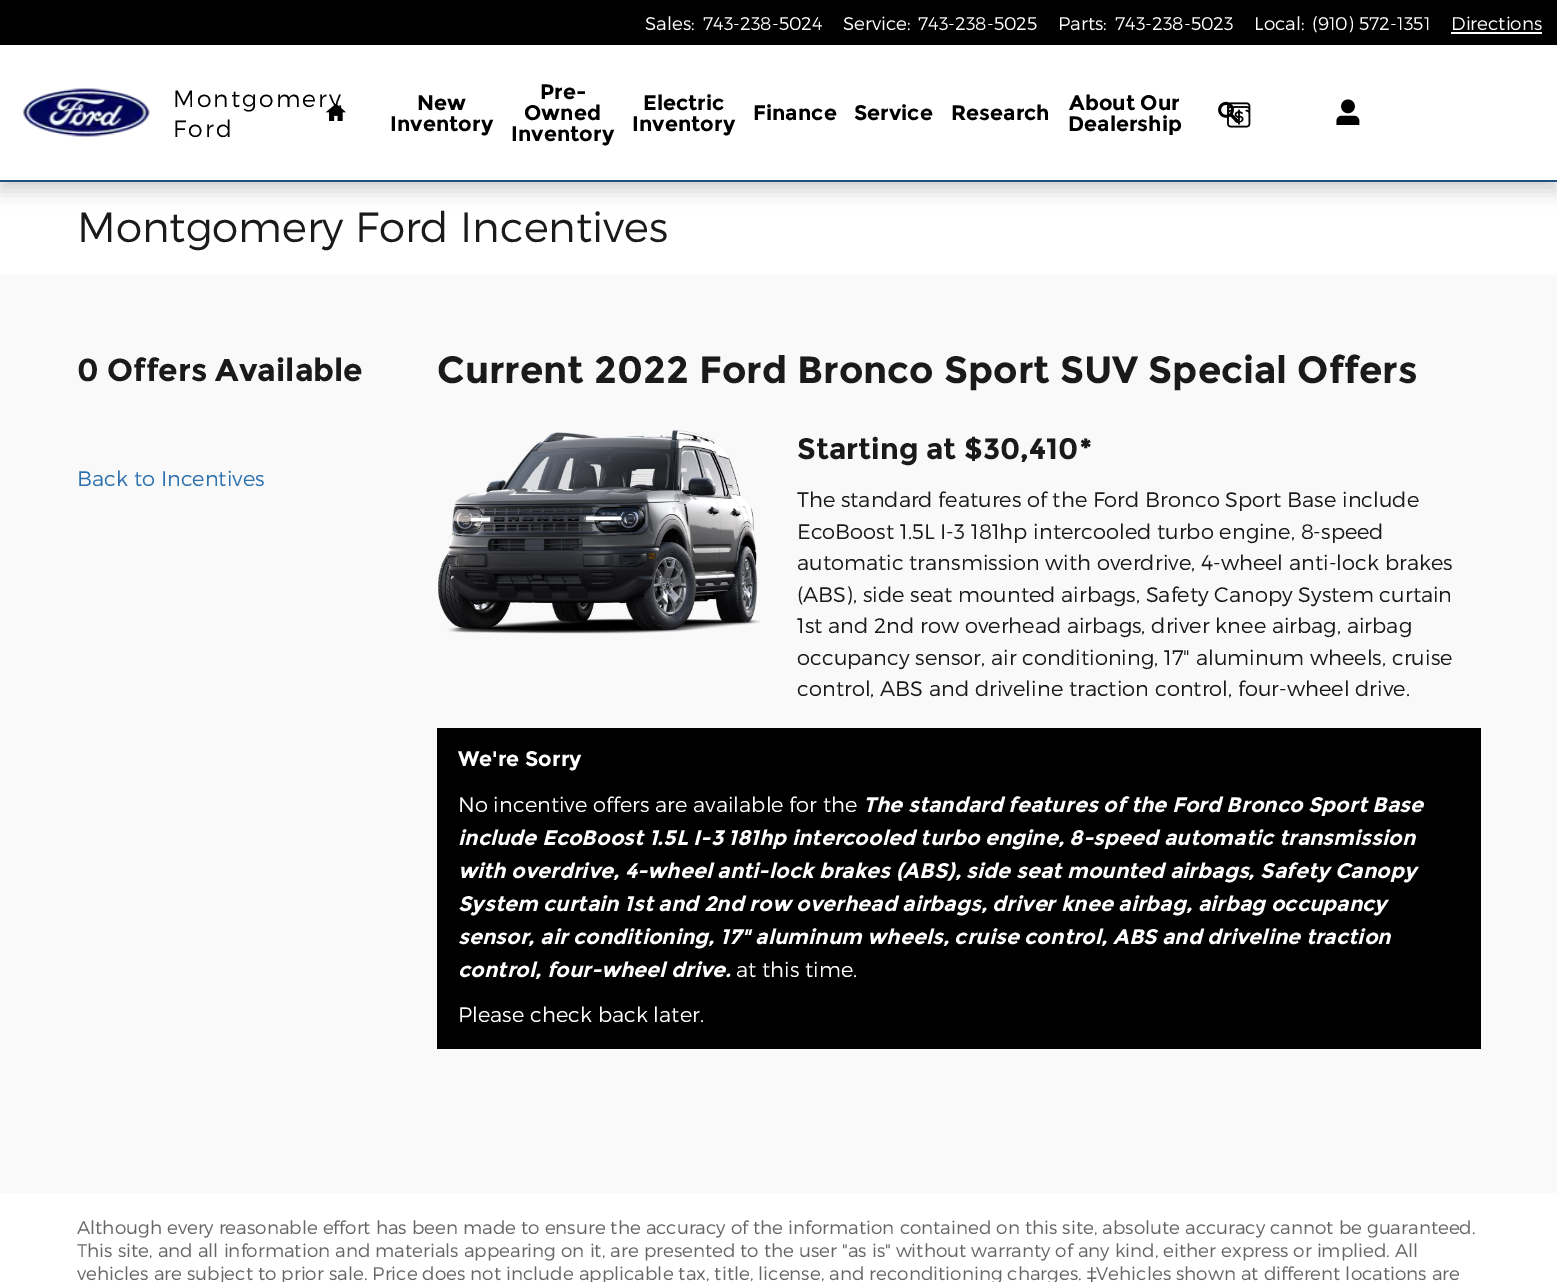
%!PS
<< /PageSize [1557 1282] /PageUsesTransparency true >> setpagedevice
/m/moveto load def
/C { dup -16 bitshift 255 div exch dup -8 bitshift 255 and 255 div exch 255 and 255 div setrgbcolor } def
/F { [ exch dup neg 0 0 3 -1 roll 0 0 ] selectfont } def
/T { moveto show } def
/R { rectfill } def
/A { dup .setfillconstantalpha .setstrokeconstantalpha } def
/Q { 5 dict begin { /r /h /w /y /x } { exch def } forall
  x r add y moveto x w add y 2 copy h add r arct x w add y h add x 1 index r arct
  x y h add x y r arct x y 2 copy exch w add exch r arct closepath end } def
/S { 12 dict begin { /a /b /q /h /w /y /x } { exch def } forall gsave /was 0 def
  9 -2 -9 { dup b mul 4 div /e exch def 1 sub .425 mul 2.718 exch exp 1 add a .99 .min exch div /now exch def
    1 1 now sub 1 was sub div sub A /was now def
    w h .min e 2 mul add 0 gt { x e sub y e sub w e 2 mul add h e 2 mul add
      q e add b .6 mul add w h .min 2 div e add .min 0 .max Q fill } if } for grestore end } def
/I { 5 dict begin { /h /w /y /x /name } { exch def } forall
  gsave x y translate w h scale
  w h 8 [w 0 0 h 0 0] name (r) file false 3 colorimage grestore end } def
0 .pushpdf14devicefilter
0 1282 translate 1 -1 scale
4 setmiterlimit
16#F9F9FA C
0 0 1557 1282 R
16#FFFFFF C
0 182 1557 93 R
16#000000 C
0 9 1557 182 0 9 .18 S
16#FFFFFF C
0 45 1557 135 R
16#215080 C
0 180 1557 2 R
16#000000 C
0 0 1557 45 R
/Montserrat-Light 18.38 F
16#FFFFFF C
(Sales:) 645 30 T
(743-238-5024) 703 30 T
(Service:) 843 30 T
(743-238-5025) 918 30 T
(Parts:) 1058 30 T
(743-238-5023) 1115 30 T
(Local:) 1254 30 T
(\(910\) 572-1351) 1312 30 T
(Directions) 1451 30 T
1451 32 91 2 R
(1.rgb) 23 88 127 49 I
/Montserrat-Light 23.5 F
16#000000 C
173 107 m 2.1 0 (Montgomery) ashow
173 137 m 2.1 0 (Ford) ashow
(2.rgb) 325 103 21 18 I
/Montserrat-Bold 21 F
(New) 417 110 T
(Inventory) 390 131 T
(Pre-) 540 99 T
(Owned) 524 120 T
(Inventory) 511 141 T
(Electric) 643 110 T
(Inventory) 632 131 T
(Finance) 753 120 T
(Service) 854 120 T
(Research) 951 120 T
(About Our) 1069 110 T
(Dealership) 1068 131 T
(3.rgb) 1218 101 21 22 I
(4.rgb) 1227 102 24 26 I
(5.rgb) 1336 99 24 26 I
/Montserrat-Light 42 F
16#1A1A1A C
(Montgomery Ford Incentives) 77 242 T
/Montserrat-Bold 31.5 F
(0 Offers Available) 77 381 T
/Montserrat-Light 21 F
16#2D72AD C
(Back to Incentives) 77 486 T
/Montserrat-Bold 37.8 F
16#1A1A1A C
(Current 2022 Ford Bronco Sport SUV Special Offers) 437 383 T
(6.rgb) 438 430 322 204 I
/Montserrat-Bold 29.4 F
(Starting at $30,410*) 797 459 T
/Montserrat-Light 21 F
(The standard features of the Ford Bronco Sport Base include) 797 507 T
(EcoBoost 1.5L I-3 181hp intercooled turbo engine, 8-speed) 797 539 T
(automatic transmission with overdrive, 4-wheel anti-lock brakes) 797 570 T
(\(ABS\), side seat mounted airbags, Safety Canopy System curtain) 797 602 T
(1st and 2nd row overhead airbags, driver knee airbag, airbag) 797 633 T
(occupancy sensor, air conditioning, 17" aluminum wheels, cruise) 797 665 T
(control, ABS and driveline traction control, four-wheel drive.) 797 696 T
16#000000 C
437 728 1044 321 R
/Montserrat-Bold 21 F
16#FFFFFF C
(We're Sorry) 458 766 T
/Montserrat-Light 21 F
(No incentive offers are available for the) 458 812 T
/Montserrat-BoldItalic 21 F
(The standard features of the Ford Bronco Sport Base) 863 812 T
(include EcoBoost 1.5L I-3 181hp intercooled turbo engine, 8-speed automatic transmission) 458 845 T
(with overdrive, 4-wheel anti-lock brakes \(ABS\), side seat mounted airbags, Safety Canopy) 458 878 T
(System curtain 1st and 2nd row overhead airbags, driver knee airbag, airbag occupancy) 458 911 T
(sensor, air conditioning, 17" aluminum wheels, cruise control, ABS and driveline traction) 458 944 T
(control, four-wheel drive.) 458 977 T
/Montserrat-Light 21 F
(at this time.) 736 977 T
(Please check back later.) 458 1022 T
0 1193 1557 89 R
/Montserrat-Light 18.38 F
16#666666 C
(Although every reasonable effort has been made to ensure the accuracy of the information contained on this site, absolute accuracy cannot be guaranteed.) 77 1234 T
(This site, and all information and materials appearing on it, are presented to the user "as is" without warranty of any kind, either express or implied. All) 77 1257 T
(vehicles are subject to prior sale. Price does not include applicable tax, title, license, and reconditioning charges. ‡Vehicles shown at different locations are) 77 1280 T
.poppdf14devicefilter showpage
